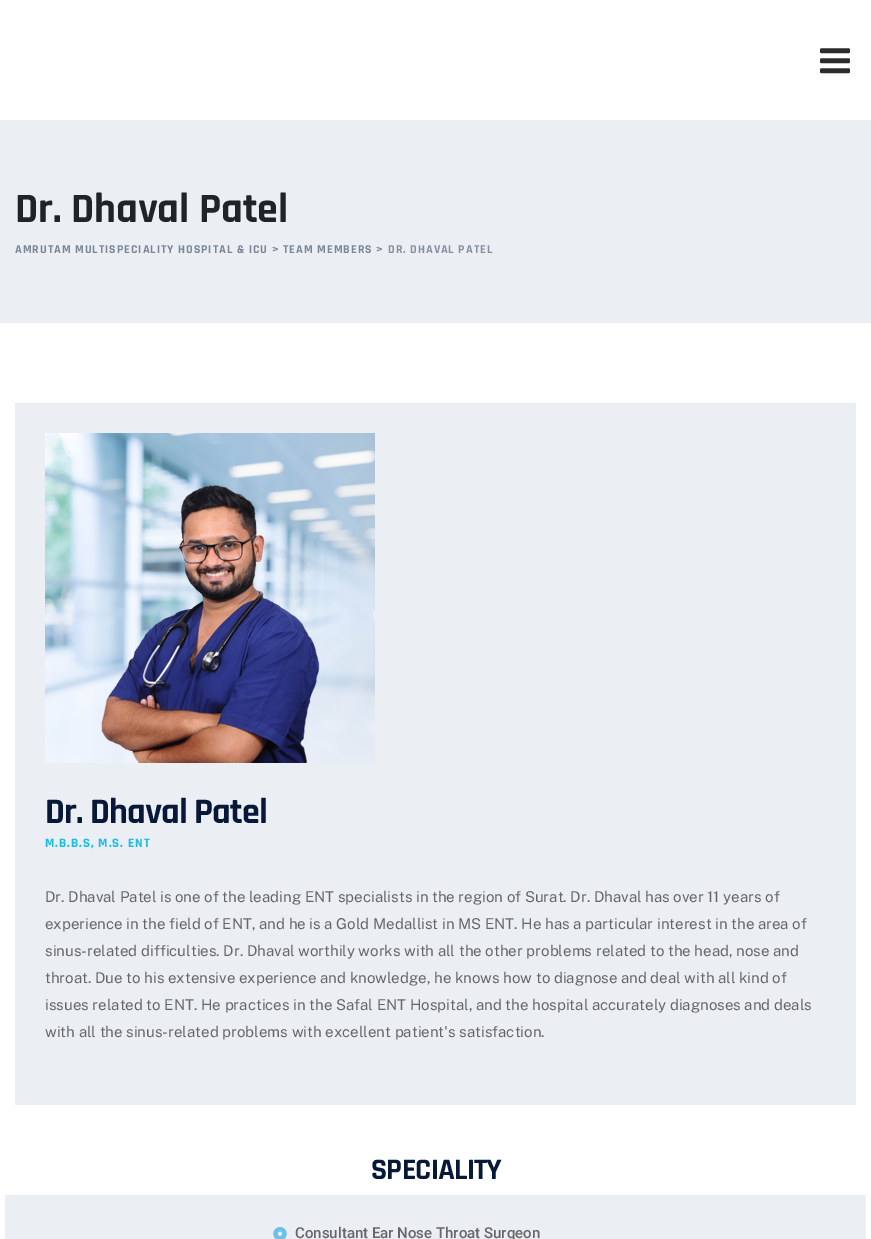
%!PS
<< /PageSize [871 1239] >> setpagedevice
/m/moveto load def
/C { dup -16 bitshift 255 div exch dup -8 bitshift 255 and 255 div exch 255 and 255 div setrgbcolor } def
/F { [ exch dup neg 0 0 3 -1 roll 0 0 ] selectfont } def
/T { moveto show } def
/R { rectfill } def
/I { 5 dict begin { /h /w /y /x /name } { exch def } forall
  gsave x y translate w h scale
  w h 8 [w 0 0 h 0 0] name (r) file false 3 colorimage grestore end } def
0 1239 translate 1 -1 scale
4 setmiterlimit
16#FFFFFF C
0 0 871 1239 R
(1.rgb) 820 48 30 26 I
16#EBEEF3 C
0 120 871 203 R
/Rajdhani-Bold 42 F
16#202426 C
(Dr. Dhaval Patel) 15 222 T
/Rajdhani-Bold 12 F
16#7A8696 C
15 253 m 1 0 (AMRUTAM MULTISPECIALITY HOSPITAL & ICU > TEAM MEMBERS >) ashow
16#8590A0 C
388 253 m 1 0 (DR. DHAVAL PATEL) ashow
16#EBEEF3 C
15 403 841 702 R
(2.rgb) 45 433 330 330 I
/Rajdhani-Bold 36 F
16#081839 C
45 823 m -.75 0 (Dr. Dhaval Patel) ashow
/Rajdhani-Bold 13 F
16#1BBDE4 C
45 847 m 1 0 (M.B.B.S, M.S. ENT) ashow
/PublicSans-Regular 15 F
16#666666 C
(Dr. Dhaval Patel is one of the leading ENT specialists in the region of Surat. Dr. Dhaval has over 11 years of) 45 902 T
(experience in the field of ENT, and he is a Gold Medallist in MS ENT. He has a particular interest in the area of) 45 929 T
(sinus-related difficulties. Dr. Dhaval worthily works with all the other problems related to the head, nose and) 45 956 T
(throat. Due to his extensive experience and knowledge, he knows how to diagnose and deal with all kind of) 45 983 T
(issues related to ENT. He practices in the Safal ENT Hospital, and the hospital accurately diagnoses and deals) 45 1010 T
(with all the sinus-related problems with excellent patient's satisfaction.) 45 1037 T
/Rajdhani-Bold 30 F
16#081839 C
371 1179 m -.75 0 (SPECIALITY) ashow
16#EBEEF3 C
5 1195 861 44 R
(3.rgb) 273 1227 14 12 I
/Roboto-Medium 15 F
16#666666 C
(Consultant Ear Nose Throat Surgeon) 295 1238 T
showpage
